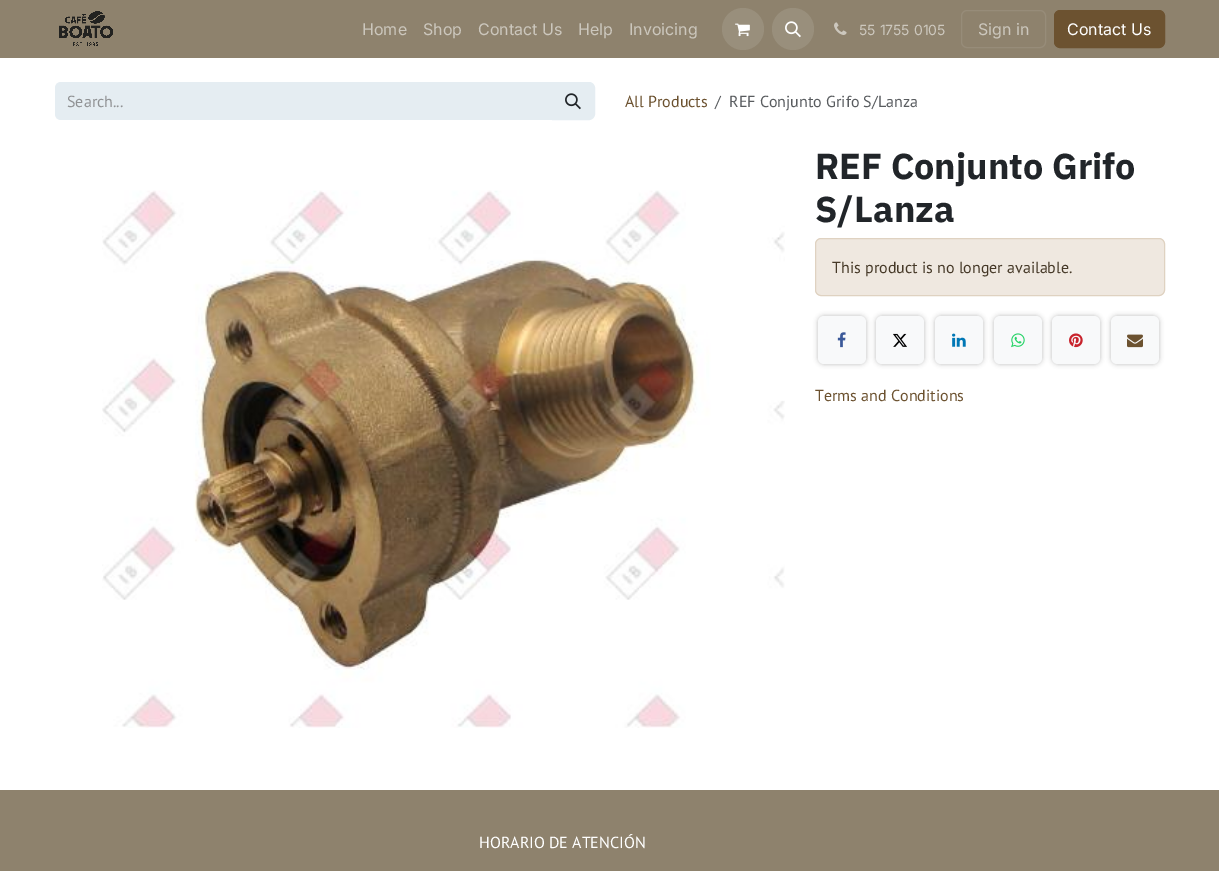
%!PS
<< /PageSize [1219 871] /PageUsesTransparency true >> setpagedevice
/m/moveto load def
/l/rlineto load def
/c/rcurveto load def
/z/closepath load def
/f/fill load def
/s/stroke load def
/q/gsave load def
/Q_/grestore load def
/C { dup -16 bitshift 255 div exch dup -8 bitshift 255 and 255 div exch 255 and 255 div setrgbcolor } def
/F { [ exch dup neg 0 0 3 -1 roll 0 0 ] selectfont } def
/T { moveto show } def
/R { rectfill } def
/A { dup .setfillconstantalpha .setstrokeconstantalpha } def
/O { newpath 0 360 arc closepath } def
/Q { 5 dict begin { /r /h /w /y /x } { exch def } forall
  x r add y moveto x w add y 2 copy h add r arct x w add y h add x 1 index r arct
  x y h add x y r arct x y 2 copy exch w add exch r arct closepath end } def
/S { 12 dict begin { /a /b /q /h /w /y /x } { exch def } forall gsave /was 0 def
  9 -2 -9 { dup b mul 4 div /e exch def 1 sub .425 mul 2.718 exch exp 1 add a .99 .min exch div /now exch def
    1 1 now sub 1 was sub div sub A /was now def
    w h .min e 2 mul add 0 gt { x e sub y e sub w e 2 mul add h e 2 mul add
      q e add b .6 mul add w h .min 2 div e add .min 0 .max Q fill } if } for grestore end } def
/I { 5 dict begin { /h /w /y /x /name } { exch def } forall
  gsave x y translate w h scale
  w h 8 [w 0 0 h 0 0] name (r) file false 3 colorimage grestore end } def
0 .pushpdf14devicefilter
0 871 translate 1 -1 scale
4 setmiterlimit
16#FFFFFF C
0 0 1219 871 R
16#8E826D C
0 0 1219 58 R
(1.rgb) 59 11 54 35 I
/Inter-Regular 16 F
16#CCC7BD C
(Home) 362 35 T
(Shop) 423 35 T
(Contact Us) 478 35 T
(Help) 578 35 T
(Invoicing) 629 35 T
16#998F7C C
743 29 21 O f
(2.rgb) 735 23 15 14 I
793 29 21 O f
(3.rgb) 785 21 16 17 I
(4.rgb) 834 22 13 13 I
/Inter-Regular 14 F
16#CCC7BD C
(55 1755 0105) 859 35 T
16#978C79 C
961.5 10.5 84 37 5.5 Q s
/Inter-Regular 16 F
16#CCC7BD C
(Sign in) 978 35 T
16#6C5230 C
1054.5 10.5 110 37 5.5 Q q f Q_
s
16#FFFFFF C
(Contact Us) 1067 35 T
16#E5EDF2 C
61 82 m 492 0 l 0 38 l -492 0 l -3.5 0 -6 -2.5 -6 -6 c 0 -26 l 0 -3.5 2.5 -6 6 -6 c z f
/PTSans-Regular 16 F
16#909294 C
(Search...) 67 107 T
16#E5EDF2 C
552.5 82.5 m 36.5 0 l 3 0 5.5 2.5 5.5 5.5 c 0 26 l 0 3 -2.5 5.5 -5.5 5.5 c -36.5 0 l z q f Q_
s
(5.rgb) 565 93 16 17 I
16#6C5230 C
(All Products) 625 107 T
16#595C5F C
(/) 715 107 T
(REF Conjunto Grifo S/Lanza) 729 107 T
(6.rgb) 102 190 683 538 I
/IBMPlexSans-Bold 36 F
16#212529 C
(REF Conjunto Grifo) 815 179 T
(S/Lanza) 815 222 T
16#EFE8E0 C
815.5 238.5 349 57 5.5 Q q f Q_
16#DFD2C1 C
s
/PTSans-Regular 16 F
16#463928 C
(This product is no longer available.) 832 273 T
16#000000 C
818 316 48 48 6 2.5 .25 S
16#F8F9FA C
818 316 48 48 6 Q f
(7.rgb) 837 332 9 16 I
16#000000 C
876 316 48 48 6 2.5 .25 S
16#F8F9FA C
876 316 48 48 6 Q f
(8.rgb) 893 333 14 14 I
16#000000 C
935 316 48 48 6 2.5 .25 S
16#F8F9FA C
935 316 48 48 6 Q f
(9.rgb) 952 333 14 14 I
16#000000 C
994 316 48 48 6 2.5 .25 S
16#F8F9FA C
994 316 48 48 6 Q f
(10.rgb) 1011 333 14 15 I
16#000000 C
1052 316 48 48 6 2.5 .25 S
16#F8F9FA C
1052 316 48 48 6 Q f
(11.rgb) 1069 333 14 15 I
16#000000 C
1111 316 48 48 6 2.5 .25 S
16#F8F9FA C
1111 316 48 48 6 Q f
(12.rgb) 1127 334 16 14 I
16#6C5230 C
(Terms and Conditions) 815 401 T
16#8E826D C
0 790 1219 81 R
16#FFFFFF C
(HORARIO DE ATENCIÓN) 479 848 T
.poppdf14devicefilter showpage
